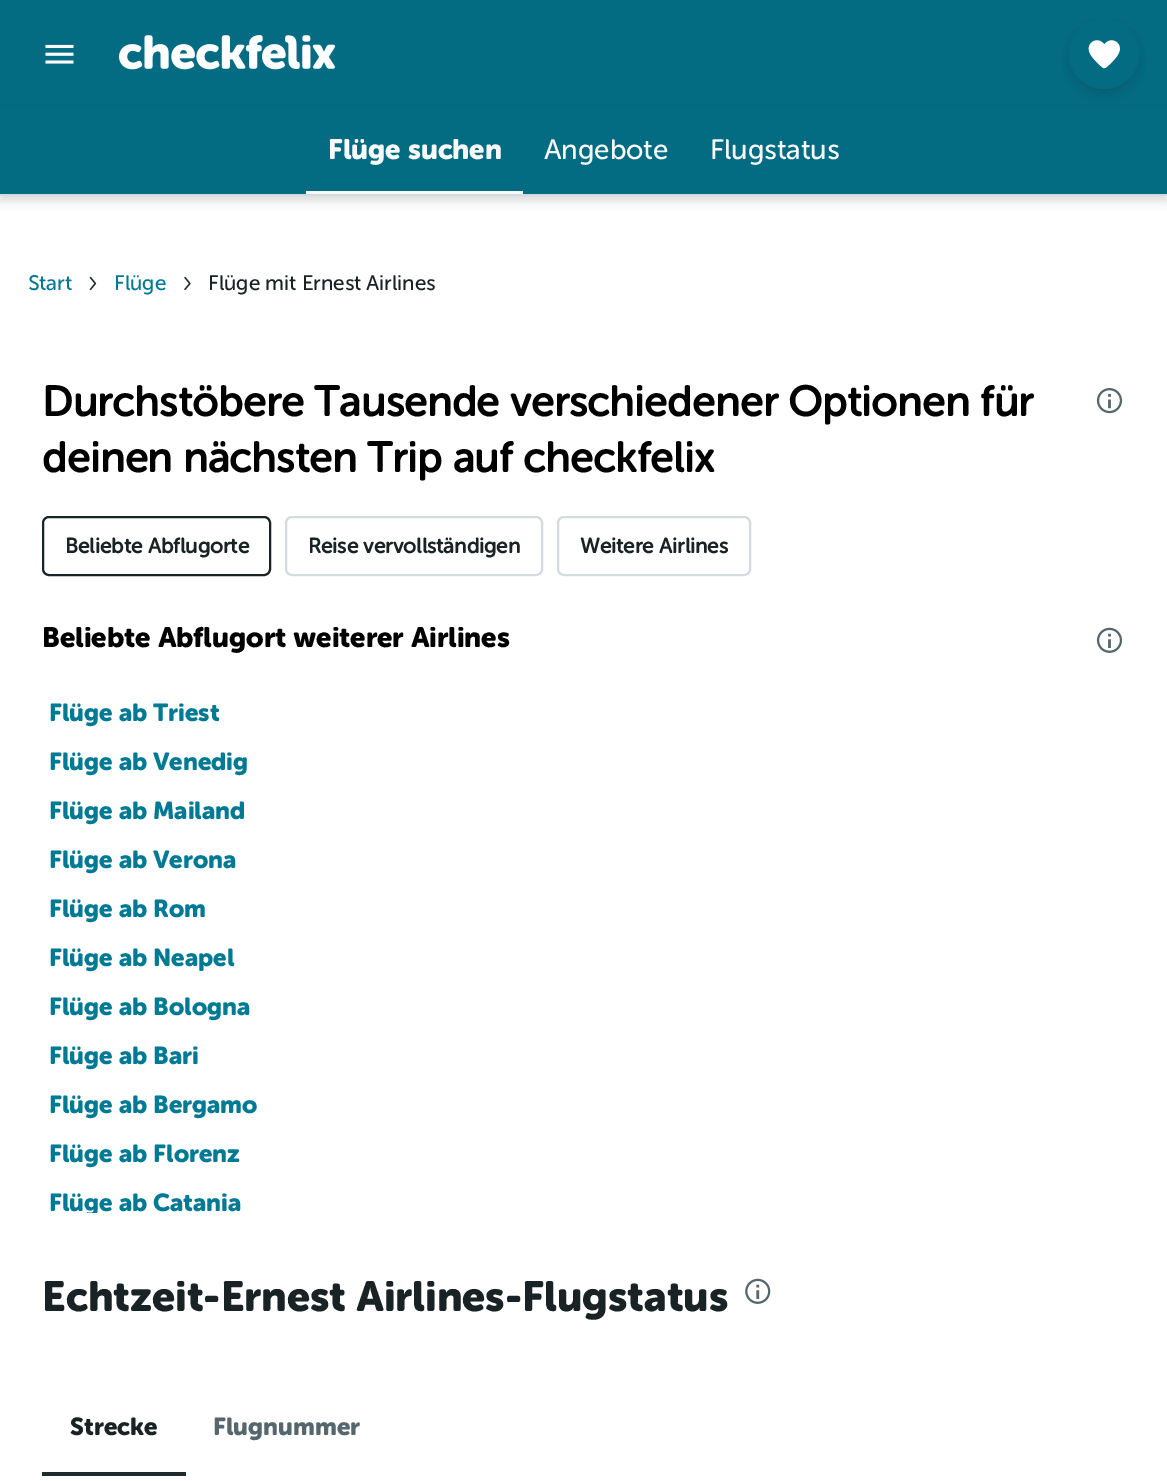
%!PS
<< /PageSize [1167 1481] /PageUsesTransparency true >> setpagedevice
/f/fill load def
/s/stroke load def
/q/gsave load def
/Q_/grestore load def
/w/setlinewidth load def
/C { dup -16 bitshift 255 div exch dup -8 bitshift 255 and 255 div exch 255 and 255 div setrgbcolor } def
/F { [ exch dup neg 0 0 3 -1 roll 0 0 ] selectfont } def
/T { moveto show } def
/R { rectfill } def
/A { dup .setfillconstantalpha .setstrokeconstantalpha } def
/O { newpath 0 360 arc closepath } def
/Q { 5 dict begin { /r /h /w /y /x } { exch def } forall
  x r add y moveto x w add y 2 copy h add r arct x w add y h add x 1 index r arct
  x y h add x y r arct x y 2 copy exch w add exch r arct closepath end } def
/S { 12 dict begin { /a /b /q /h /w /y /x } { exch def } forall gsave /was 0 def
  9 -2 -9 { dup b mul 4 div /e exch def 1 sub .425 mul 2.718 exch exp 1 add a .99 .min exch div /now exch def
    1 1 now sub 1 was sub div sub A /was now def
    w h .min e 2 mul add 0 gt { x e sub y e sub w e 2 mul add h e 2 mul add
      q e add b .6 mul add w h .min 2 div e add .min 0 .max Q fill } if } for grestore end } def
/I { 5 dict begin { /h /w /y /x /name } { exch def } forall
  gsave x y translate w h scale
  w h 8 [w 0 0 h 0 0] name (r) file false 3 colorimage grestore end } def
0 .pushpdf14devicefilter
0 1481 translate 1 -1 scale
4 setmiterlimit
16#FFFFFF C
0 0 1167 1481 R
16#036B82 C
0 0 1167 107 R
(1.rgb) 45 44 29 20 I
(2.rgb) 119 35 217 35 I
16#192224 C
0 112 1167 89 0 5 .16 S
16#036B82 C
0 107 1167 87 R
16#192224 C
1069 25 70 70 35 5 .16 S
16#036B82 C
1104 54 35 O f
(3.rgb) 1088 40 32 29 I
16#D2DCE0 C
0 194 1167 2 R
16#F9FAFB C
306 191 217 3 R
/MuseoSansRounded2-Bold 28 F
(Flüge suchen) 328 159 T
/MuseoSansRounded-Regular 28 F
(Angebote) 544 159 T
(Flugstatus) 710 159 T
/MuseoSansRounded-Regular 21 F
16#007A94 C
(Start) 28 290 T
(4.rgb) 89 276 8 15 I
(Flüge) 114 290 T
(5.rgb) 184 276 7 15 I
16#192224 C
(Flüge mit Ernest Airlines) 208 290 T
/MuseoSansRounded-Bold 42 F
16#000000 C
(Durchstöbere Tausende verschiedener Optionen für) 42 416 T
(deinen nächsten Trip auf checkfelix) 42 472 T
(6.rgb) 1096 388 27 26 I
16#192224 C
2 w
43 517 227 58 6 Q s
/MuseoSansRounded-Bold 21 F
(Beliebte Abflugorte) 65 553 T
16#D2DCE0 C
286 517 256 58 6 Q s
16#192224 C
(Reise vervollständigen) 308 553 T
16#D2DCE0 C
558 517 192 58 6 Q s
16#192224 C
(Weitere Airlines) 580 553 T
/MuseoSansRounded2-Bold 28 F
16#000000 C
(Beliebte Abflugort weiterer Airlines) 42 647 T
(7.rgb) 1096 627 27 26 I
/MuseoSansRounded2-Bold 24.5 F
16#007A94 C
(Flüge ab Triest) 49 721 T
(Flüge ab Venedig) 49 770 T
(Flüge ab Mailand) 49 819 T
(Flüge ab Verona) 49 868 T
(Flüge ab Rom) 49 917 T
(Flüge ab Neapel) 49 966 T
(Flüge ab Bologna) 49 1015 T
(Flüge ab Bari) 49 1064 T
(Flüge ab Bergamo) 49 1113 T
(Flüge ab Florenz) 49 1162 T
q
42 688 1083 525 rectclip
(Flüge ab Catania) 49 1211 T
Q_
/MuseoSansRounded2-Bold 42 F
16#192224 C
(Echtzeit-Ernest Airlines-Flugstatus) 42 1311 T
(8.rgb) 745 1278 26 26 I
16#1F2A2D C
42 1472 144 4 R
/MuseoSansRounded2-Bold 24.5 F
16#192224 C
(Strecke) 70 1435 T
16#55676D C
(Flugnummer) 213 1435 T
.poppdf14devicefilter showpage
